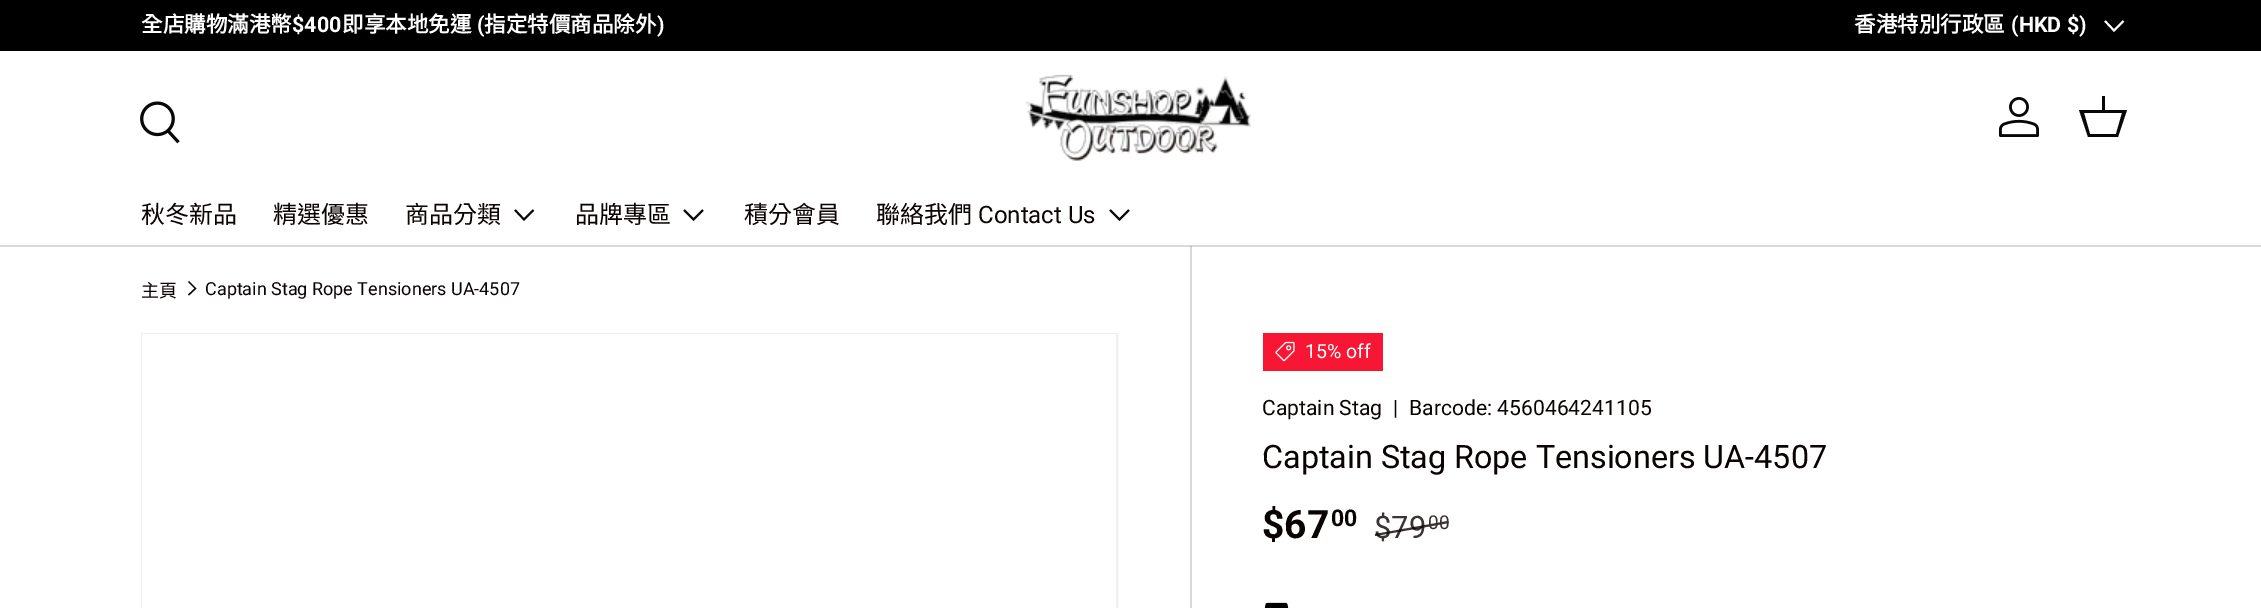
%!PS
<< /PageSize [2261 608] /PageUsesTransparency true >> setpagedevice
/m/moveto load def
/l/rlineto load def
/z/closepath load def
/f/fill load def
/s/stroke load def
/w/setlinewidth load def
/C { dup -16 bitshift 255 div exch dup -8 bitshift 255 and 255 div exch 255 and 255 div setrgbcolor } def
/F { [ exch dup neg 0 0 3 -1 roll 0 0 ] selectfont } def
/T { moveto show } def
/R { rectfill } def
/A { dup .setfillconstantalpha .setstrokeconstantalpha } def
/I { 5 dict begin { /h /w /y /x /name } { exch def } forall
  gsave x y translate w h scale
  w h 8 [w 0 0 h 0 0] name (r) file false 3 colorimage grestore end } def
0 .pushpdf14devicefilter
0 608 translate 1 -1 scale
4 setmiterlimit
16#FFFFFF C
0 0 2261 608 R
16#DADADA C
0 245 2261 2 R
16#000000 C
0 0 2261 51 R
/NotoSansCJKTC-Bold 21.5 F
16#FFFFFF C
(全店購物滿港幣) 141 32 T
/Roboto-Bold 21.5 F
($400) 292 32 T
/NotoSansCJKTC-Bold 21.5 F
(即享本地免運) 342 32 T
/Roboto-Bold 21.5 F
(\() 477 32 T
/NotoSansCJKTC-Bold 21.5 F
(指定特價商品除外) 484 32 T
/Roboto-Bold 21.5 F
(\)) 657 32 T
/NotoSansCJKTC-Bold 21.5 F
(香港特別行政區) 1854 32 T
/Roboto-Bold 21.5 F
(\(HKD $\)) 2011 32 T
1.9 w
2123.5 21 m -9.5 9.5 l -9 -9.5 l s
(1.rgb) 140 101 40 43 I
(2.rgb) 1026 74 225 87 I
(3.rgb) 1999 97 40 40 I
16#070707 C
2102 110 m 0 -14 l 3 0 l 0 14 l 22 0 l -9 27 l -30 0 l -9 -27 l z 2084 113 m 6 21 l 26 0 l 6 -21 l z f
/NotoSansCJKTC-Regular 24 F
16#090302 C
(秋冬新品) 141 223 T
(精選優惠) 273 223 T
(商品分類) 405 223 T
16#070707 C
533.5 210 m -9.5 9.5 l -9 -9.5 l s
16#090302 C
(品牌專區) 575 223 T
16#070707 C
703 210 m -9.5 9.5 l -9.5 -9.5 l s
16#090302 C
(積分會員) 744 223 T
(聯絡我們) 876 223 T
/Roboto-Regular 24 F
(Contact Us) 978 223 T
16#070707 C
1129 210 m -9.5 9.5 l -9.5 -9.5 l s
/NotoSansCJKTC-Regular 18 F
16#090302 C
(主頁) 141 297 T
1.3 w
188.5 281.5 m 7 7 l -7 6.5 l s
/Roboto-Regular 18 F
(Captain Stag Rope Tensioners UA-4507) 205 295 T
16#EEEEEE C
2 w
142 334 975 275 rectstroke
16#FFFFFF C
142 334 974 274 R
16#DAD9D9 C
1190 246 2 362 R
16#BABABA C
1190 246 2 1 R
16#F71735 C
1263 333 120 38 R
(4.rgb) 1275 341 20 21 I
/Roboto-Regular 19.5 F
16#FFFFFF C
(15% off) 1305 358 T
/Roboto-Regular 21.1 F
16#090302 C
(Captain Stag) 1262 415 T
(|) 1393 415 T
(Barcode: 4560464241105) 1409 415 T
/Roboto-Regular 32.3 F
(Captain Stag Rope Tensioners UA-4507) 1262 468 T
/Roboto-Bold 39 F
($67) 1262 538 T
/Roboto-Bold 23 F
(00) 1331 526 T
/Roboto-Regular 31 F
16#3A3535 C
($79) 1374 538 T
0.8 A
16#090302 C
1375 534 m 73 -13 l 1 2 l -74 13 l z f
/Roboto-Regular 19 F
1 A
16#35302F C
(00) 1428 529 T
(5.rgb) 1264 602 25 6 I
.poppdf14devicefilter showpage
